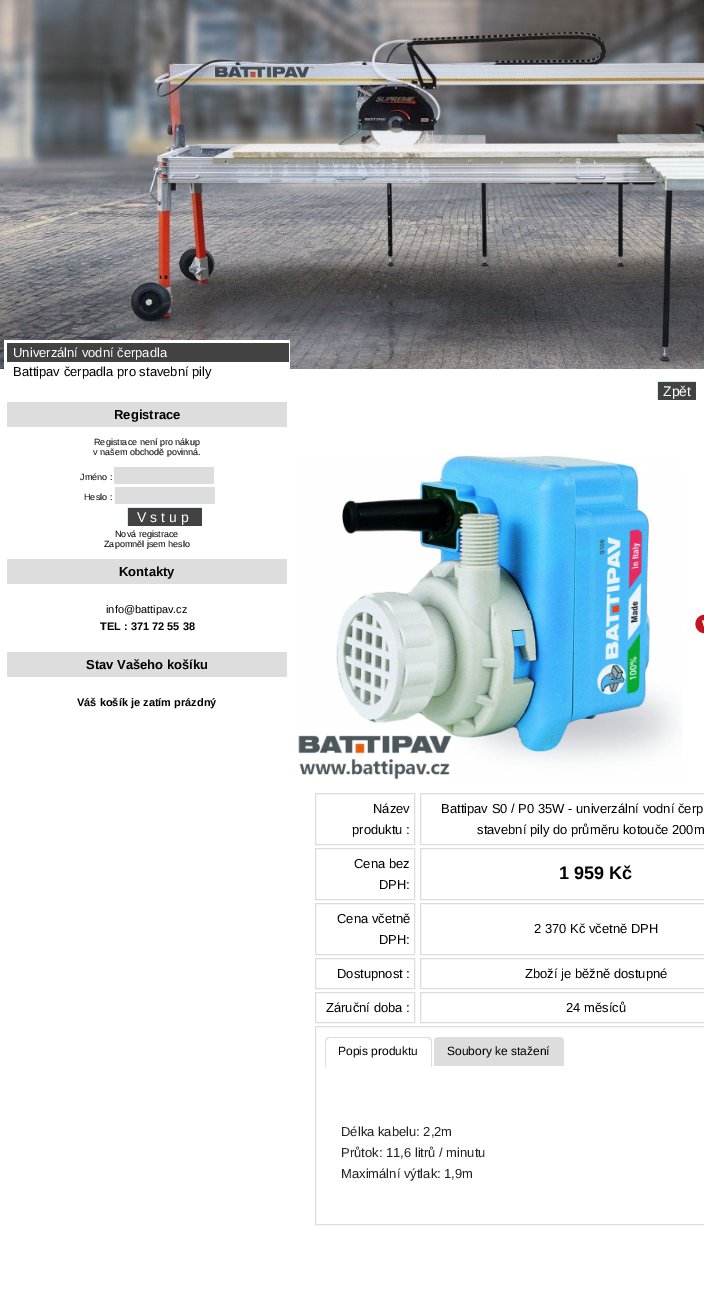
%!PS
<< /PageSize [704 1307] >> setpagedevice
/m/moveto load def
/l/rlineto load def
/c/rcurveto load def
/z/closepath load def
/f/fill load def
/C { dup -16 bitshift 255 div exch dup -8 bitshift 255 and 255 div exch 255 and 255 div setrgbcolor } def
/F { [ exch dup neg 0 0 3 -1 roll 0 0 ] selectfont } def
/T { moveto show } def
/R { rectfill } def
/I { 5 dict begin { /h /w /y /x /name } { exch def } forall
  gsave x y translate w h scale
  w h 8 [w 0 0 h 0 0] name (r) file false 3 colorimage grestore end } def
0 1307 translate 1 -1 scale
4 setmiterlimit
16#FFFFFF C
0 0 704 1307 R
(1.rgb) 0 0 704 369 I
4 340 286 29 R
16#424242 C
7 343 282 19 R
/LiberationSans-Regular 13 F
16#FFFFFF C
(Univerzální vodní čerpadla) 13 357 T
16#000000 C
(Battipav čerpadla pro stavební pily) 13 376 T
16#DEDDDD C
7 402 280 25 R
/LiberationSans-Bold 13 F
16#000000 C
(Registrace) 114 419 T
/LiberationSans-Regular 9 F
(Registrace není pro nákup) 94 445 T
(v našem obchodě povinná.) 93 455 T
(Jméno :) 80 480 T
16#DEDDDD C
114 467 100 17 R
16#000000 C
(Heslo :) 84 500 T
16#DEDDDD C
115 487 100 17 R
16#424242 C
128 508 74 18 R
16#D9EBF1 C
127 507 75 1 R
127 507 1 19 R
/LiberationSans-Regular 14 F
16#FFFFFF C
(V s t u p) 137 522 T
/LiberationSans-Regular 9 F
16#000000 C
(Nová registrace) 115 537 T
(Zapomněl jsem heslo) 104 547 T
16#DEDDDD C
7 559 280 25 R
/LiberationSans-Bold 13 F
16#000000 C
(Kontakty) 119 576 T
/LiberationSans-Regular 11 F
(info@battipav.cz) 106 613 T
/LiberationSans-Bold 11 F
(TEL : 371 72 55 38) 100 630 T
16#DEDDDD C
7 652 280 25 R
/LiberationSans-Bold 13 F
16#000000 C
(Stav Vašeho košíku) 86 669 T
/LiberationSans-Bold 11 F
(Váš košík je zatím prázdný) 77 706 T
16#424242 C
658 382 38 18 R
/LiberationSans-Regular 14 F
16#FFFFFF C
(Zpět) 663 396 T
16#D9EBF1 C
657 381 39 1 R
657 381 1 19 R
(2.rgb) 298 455 385 325 I
(3.rgb) 695 614 9 20 I
16#DEDDDD C
315.5 793.5 99 51 rectstroke
/LiberationSans-Regular 13 F
16#000000 C
(Název) 373 813 T
(produktu :) 352 834 T
16#DEDDDD C
420.5 793.5 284 51 rectstroke
16#000000 C
(Battipav S0 / P0 35W - univerzální vodní čerp) 441 813 T
(stavební pily do průměru kotouče 200m) 477 834 T
16#DEDDDD C
315.5 848.5 99 51 rectstroke
16#000000 C
(Cena bez) 354 868 T
(DPH:) 379 889 T
16#DEDDDD C
420.5 848.5 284 51 rectstroke
/LiberationSans-Bold 18 F
16#000000 C
(1 959 Kč) 559 879 T
16#DEDDDD C
315.5 903.5 99 51 rectstroke
/LiberationSans-Regular 13 F
16#000000 C
(Cena včetně) 337 923 T
(DPH:) 379 944 T
16#DEDDDD C
420.5 903.5 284 51 rectstroke
16#000000 C
(2 370 Kč včetně DPH) 534 933 T
16#DEDDDD C
315.5 958.5 99 30 rectstroke
16#000000 C
(Dostupnost :) 337 978 T
16#DEDDDD C
420.5 958.5 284 30 rectstroke
16#000000 C
(Zboží je běžně dostupné) 525 978 T
16#DEDDDD C
315.5 992.5 99 30 rectstroke
16#000000 C
(Záruční doba :) 326 1012 T
16#DEDDDD C
420.5 992.5 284 30 rectstroke
16#000000 C
(24 měsíců) 566 1012 T
16#DEDDDD C
315.5 1026.5 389 198 rectstroke
330 1037 m 97 0 l 3 0 5 2 5 5 c 0 25 l -107 0 l 0 -25 l 0 -3 2 -5 5 -5 c z 330 1038 m 97 0 l 2 0 4 2 4 4 c 0 25 l -105 0 l 0 -25 l 0 -2 2 -4 4 -4 c z eofill
/LiberationSans-Regular 12 F
16#000000 C
(Popis produktu) 338 1055 T
16#DEDDDD C
439 1037 m 120 0 l 3 0 5 2 5 5 c 0 24 l -130 0 l 0 -24 l 0 -3 2 -5 5 -5 c z f
439 1037 m 120 0 l 3 0 5 2 5 5 c 0 24 l -130 0 l 0 -24 l 0 -3 2 -5 5 -5 c z 439 1038 m 120 0 l 2 0 4 2 4 4 c 0 24 l -128 0 l 0 -24 l 0 -2 2 -4 4 -4 c z eofill
16#000000 C
(Soubory ke stažení) 447 1055 T
/LiberationSans-Regular 13 F
16#222222 C
(Délka kabelu: 2,2m) 341 1136 T
(Průtok: 11,6 litrů / minutu) 341 1157 T
(Maximální výtlak: 1,9m) 341 1178 T
showpage
